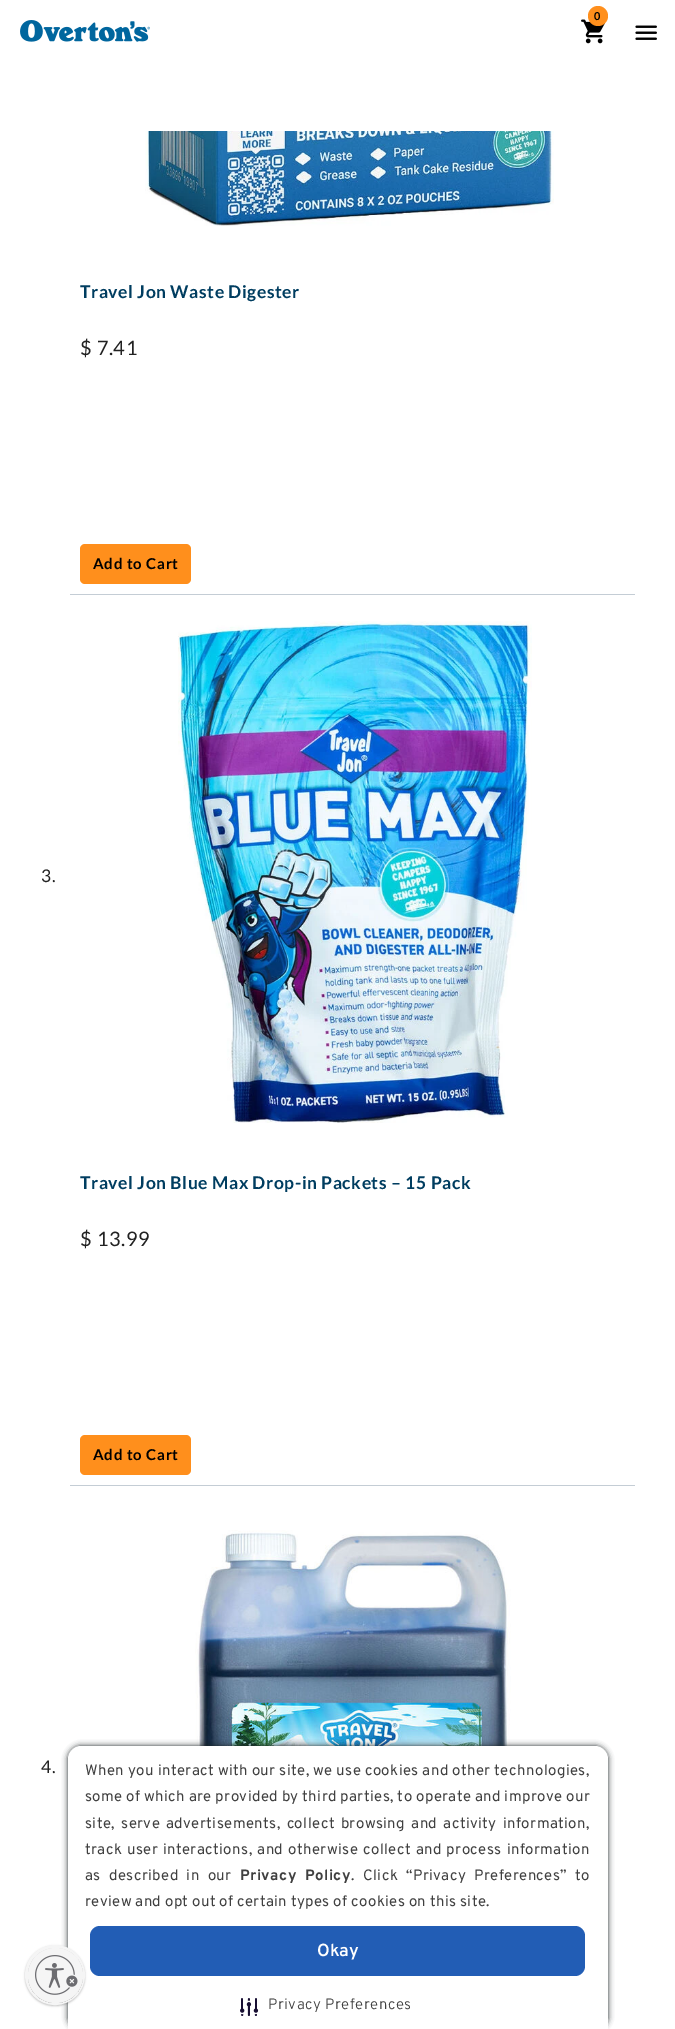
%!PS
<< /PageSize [675 2029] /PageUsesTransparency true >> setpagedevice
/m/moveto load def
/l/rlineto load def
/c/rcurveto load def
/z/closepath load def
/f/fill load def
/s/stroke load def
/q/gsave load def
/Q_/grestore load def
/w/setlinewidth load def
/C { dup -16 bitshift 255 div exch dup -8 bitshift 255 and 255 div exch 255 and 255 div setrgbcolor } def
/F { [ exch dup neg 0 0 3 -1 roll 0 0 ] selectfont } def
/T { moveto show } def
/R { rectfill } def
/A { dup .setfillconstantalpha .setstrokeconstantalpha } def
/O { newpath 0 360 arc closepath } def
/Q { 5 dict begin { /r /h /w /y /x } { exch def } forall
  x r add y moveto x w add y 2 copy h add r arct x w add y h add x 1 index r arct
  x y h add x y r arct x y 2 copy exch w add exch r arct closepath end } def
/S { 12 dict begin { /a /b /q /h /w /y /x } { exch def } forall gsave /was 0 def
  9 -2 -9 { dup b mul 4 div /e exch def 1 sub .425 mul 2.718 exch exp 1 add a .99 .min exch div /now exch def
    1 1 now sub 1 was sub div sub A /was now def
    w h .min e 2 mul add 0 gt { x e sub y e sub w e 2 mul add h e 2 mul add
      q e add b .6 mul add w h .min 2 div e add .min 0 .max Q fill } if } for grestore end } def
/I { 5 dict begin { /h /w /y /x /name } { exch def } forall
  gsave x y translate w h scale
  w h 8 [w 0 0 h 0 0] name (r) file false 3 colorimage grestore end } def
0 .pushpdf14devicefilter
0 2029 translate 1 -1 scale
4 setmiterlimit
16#FFFFFF C
0 0 675 2029 R
(1.rgb) 581 19 24 25 I
16#FF8F1C C
598 16 10 O f
/Lato-Bold 11 F
16#000000 C
594 20 m .55 0 (0) ashow
(2.rgb) 635 25 22 15 I
(3.rgb) 20 20 130 22 I
(4.rgb) 145 131 409 95 I
/Lato-Bold 17.5 F
16#003D60 C
80 298 m .55 0 (Travel Jon Waste Digester) ashow
/Lato-Regular 20 F
16#222222 C
80 355 m .55 0 ($ 7.41) ashow
16#FF8F1C C
80 544 111 40 5 Q f
/Lato-Bold 15 F
16#000000 C
93 569 m .75 0 (Add to Cart) ashow
/Lato-Regular 17.5 F
16#222222 C
41 882 m .55 0 (3.) ashow
16#C4CDD5 C
70 594 565 1 R
(5.rgb) 178 621 354 502 I
/Lato-Bold 17.5 F
16#003D60 C
80 1189 m .55 0 (Travel Jon Blue Max Drop-in Packets – 15 Pack) ashow
/Lato-Regular 20 F
16#222222 C
80 1246 m .55 0 ($ 13.99) ashow
16#FF8F1C C
80 1435 111 40 5 Q f
/Lato-Bold 15 F
16#000000 C
93 1460 m .75 0 (Add to Cart) ashow
16#C4CDD5 C
70 1485 565 1 R
(6.rgb) 195 1530 316 216 I
/Lato-Regular 17.5 F
16#222222 C
41 1773 m .55 0 (4.) ashow
16#192224 C
68 1746 540 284 13 3 1 S
16#FFFFFF C
81 1746 m 514 0 l 7 0 13 6 13 13 c 0 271 l -540 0 l 0 -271 l 0 -7 6 -13 13 -13 c z f
16#000000 C
25 1946 60 60 30 1 .24 S
16#EBEBF0 C
55 1975 28.5 O q f Q_
16#F5F5F5 C
3 w
s
q
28 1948 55 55 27.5 Q clip newpath
16#000000 C
28 1949 55 55 27.5 1 .24 S
Q_
55.5 1975.5 27.5 O f
(7.rgb) 35 1955 43 40 I
/Overpass-Regular 15 F
16#404040 C
85 1775 m -.4 0 32 .45 0 (When you interact with our site, we use cookies and other technologies,) awidthshow
85 1801 m -.5 0 32 .45 0 (some of which are provided by third parties, to operate and improve our) awidthshow
85 1828 m 2 0 32 .45 0 (site, serve advertisements, collect browsing and activity information,) awidthshow
85 1854 m .75 0 32 .45 0 (track user interactions, and otherwise collect and process information) awidthshow
85 1880 m 4 0 32 .45 0 (as described in our) awidthshow
/Overpass-Bold 15 F
240 1880 m 4 0 32 .45 0 (Privacy Policy) awidthshow
/Overpass-Regular 15 F
351 1880 m 4 0 32 .45 0 (. Click “Privacy Preferences” to) awidthshow
85 1906 m -.6 0 32 .45 0 (review and opt out of certain types of cookies on this site.) awidthshow
16#225DB5 C
90 1926 495 50 10 Q f
/Overpass-SemiBold 17.5 F
16#FFFFFF C
(Okay) 317 1956 T
(8.rgb) 240 1998 19 18 I
/Overpass-Light 15 F
16#404040 C
268 2009 m .55 0 (Privacy Preferences) ashow
.poppdf14devicefilter showpage
